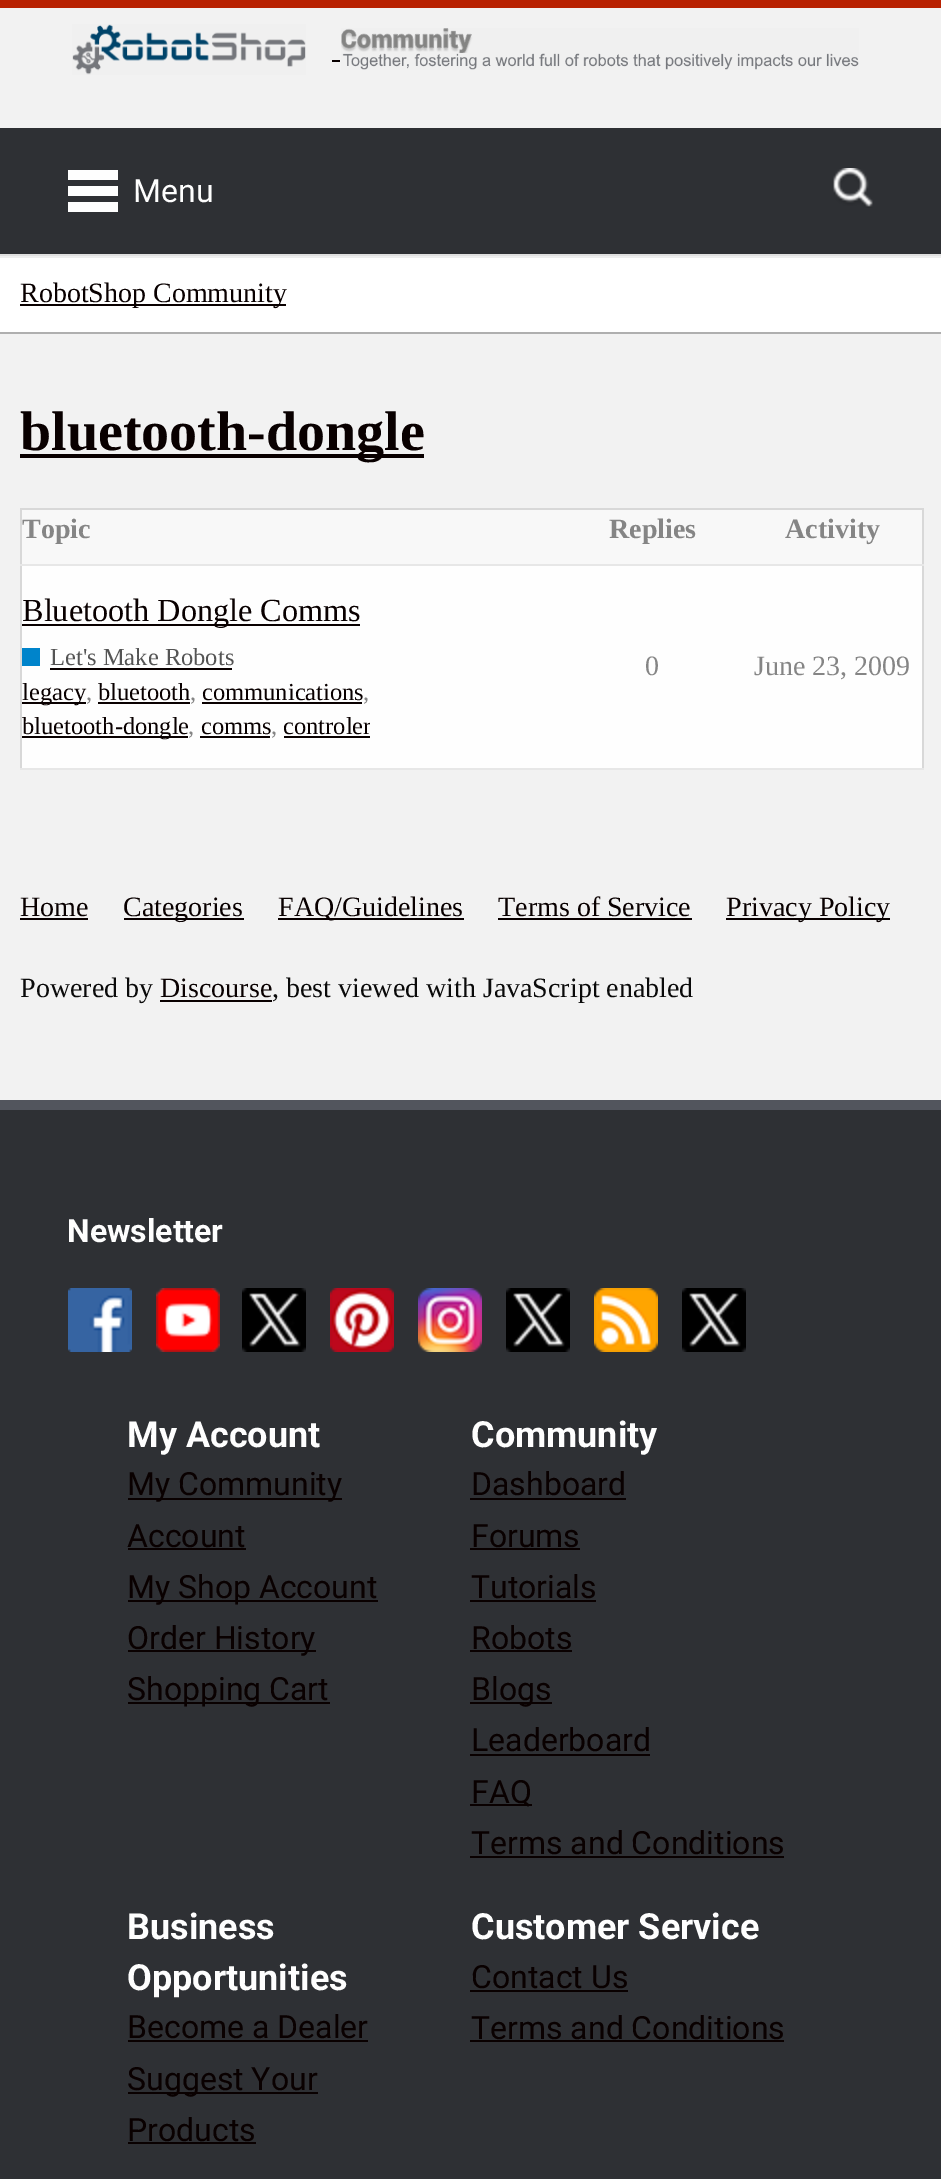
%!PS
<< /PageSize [941 2179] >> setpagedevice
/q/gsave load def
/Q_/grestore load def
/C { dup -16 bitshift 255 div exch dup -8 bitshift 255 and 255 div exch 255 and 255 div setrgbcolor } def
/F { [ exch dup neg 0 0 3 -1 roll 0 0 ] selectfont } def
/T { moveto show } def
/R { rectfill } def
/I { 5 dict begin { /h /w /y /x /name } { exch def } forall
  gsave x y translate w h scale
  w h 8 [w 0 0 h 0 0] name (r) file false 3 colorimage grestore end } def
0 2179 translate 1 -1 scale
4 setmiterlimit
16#F2F2F2 C
0 0 941 2179 R
16#B82101 C
0 0 941 8 R
(1.rgb) 72 24 234 51 I
16#090000 C
332 60 8 2 R
(2.rgb) 341 28 518 42 I
16#2E3034 C
0 128 941 126 R
16#FEFEFE C
68 170 50 10 R
68 186 50 10 R
68 202 50 10 R
/Roboto-Regular 32 F
(Menu) 133 202 T
(3.rgb) 833 168 40 40 I
16#DFDFDF C
0 254 941 2 R
16#FFFFFF C
0 258 941 74 R
16#EEEEEE C
0 256 941 2 R
16#AFAFAF C
0 332 941 2 R
16#090000 C
20 304 266 2 R
/LiberationSerif-Regular 28 F
(RobotShop Community) 20 302 T
20 454 404 4 R
/LiberationSerif-Bold 56 F
(bluetooth-dongle) 20 450 T
16#F8F8F8 C
22 510 900 54 R
16#D8D8D8 C
20 508 904 2 R
922 564 2 206 R
922 508 2 58 R
20 564 2 206 R
20 508 2 58 R
16#E7E7E7 C
20 564 904 2 R
/LiberationSerif-Bold 28 F
16#858585 C
(Topic) 22 538 T
(Replies) 609 538 T
(Activity) 785 538 T
16#FEFEFE C
22 566 900 202 R
16#E7E7E7 C
20 768 904 2 R
16#090000 C
22 624 338 2 R
/LiberationSerif-Regular 32.25 F
(Bluetooth Dongle Comms) 22 621 T
16#0084CB C
22 648 18 18 R
/LiberationSerif-Regular 24.5 F
16#545454 C
(Let's Make Robots) 50 665 T
16#090000 C
50 668 182 2 R
22 702 64 2 R
(legacy) 22 700 T
16#858585 C
(,) 86 700 T
16#090000 C
(bluetooth) 98 700 T
98 702 92 2 R
16#858585 C
(,) 190 700 T
16#090000 C
(communications) 202 700 T
202 702 160 2 R
16#858585 C
(,) 363 700 T
16#090000 C
22 736 166 2 R
(bluetooth-dongle) 22 734 T
16#858585 C
(,) 188 734 T
16#090000 C
(comms) 201 734 T
200 736 70 2 R
16#858585 C
(,) 271 734 T
q
284 710 86 34 rectclip
16#090000 C
(controler) 283 734 T
Q_
16#090000 C
284 736 86 2 R
/LiberationSerif-Regular 28 F
16#858585 C
(0) 645 675 T
(June 23, 2009) 754 675 T
16#090000 C
(Home) 20 916 T
20 918 68 2 R
124 918 120 2 R
(Categories) 123 916 T
278 918 186 2 R
(FAQ/Guidelines) 278 916 T
(Terms of Service) 498 916 T
498 918 194 2 R
726 918 164 2 R
(Privacy Policy) 726 916 T
16#0A0A0A C
(Powered by) 20 997 T
16#090000 C
(Discourse) 160 997 T
160 1000 112 2 R
16#0A0A0A C
(, best viewed with JavaScript enabled) 272 997 T
16#2E3034 C
0 1110 941 1069 R
16#52555D C
0 1100 941 10 R
/Roboto-Bold 32 F
16#FEFEFE C
(Newsletter) 67 1242 T
(4.rgb) 68 1288 64 64 I
(5.rgb) 156 1288 64 64 I
(6.rgb) 242 1288 64 64 I
(7.rgb) 330 1288 64 64 I
(8.rgb) 418 1288 64 64 I
(6.rgb) 506 1288 64 64 I
(9.rgb) 594 1288 64 64 I
(6.rgb) 682 1288 64 64 I
/Roboto-Bold 36 F
(My Account) 127 1447 T
16#090000 C
128 1498 214 2 R
/Roboto-Regular 32 F
(My Community) 127 1495 T
(Account) 127 1547 T
128 1548 118 2 R
128 1600 250 2 R
(My Shop Account) 127 1598 T
128 1650 188 2 R
(Order History) 127 1649 T
128 1702 202 2 R
(Shopping Cart) 127 1700 T
/Roboto-Bold 36 F
16#FEFEFE C
(Community) 471 1447 T
/Roboto-Regular 32 F
16#090000 C
(Dashboard) 471 1495 T
470 1498 156 2 R
(Forums) 471 1547 T
470 1548 110 2 R
(Tutorials) 471 1598 T
470 1600 126 2 R
(Robots) 471 1649 T
470 1650 102 2 R
470 1702 82 2 R
(Blogs) 471 1700 T
(Leaderboard) 471 1751 T
470 1754 180 2 R
470 1804 62 2 R
(FAQ) 471 1803 T
(Terms and Conditions) 471 1854 T
470 1856 314 2 R
/Roboto-Bold 36 F
16#FEFEFE C
(Business) 127 1939 T
(Opportunities) 127 1990 T
/Roboto-Regular 32 F
16#090000 C
(Become a Dealer) 127 2038 T
128 2040 240 2 R
128 2092 190 2 R
(Suggest Your) 127 2090 T
(Products) 127 2141 T
128 2142 128 2 R
/Roboto-Bold 36 F
16#FEFEFE C
(Customer Service) 471 1939 T
/Roboto-Regular 32 F
16#090000 C
(Contact Us) 471 1988 T
470 1990 158 2 R
(Terms and Conditions) 471 2039 T
470 2040 314 2 R
showpage
